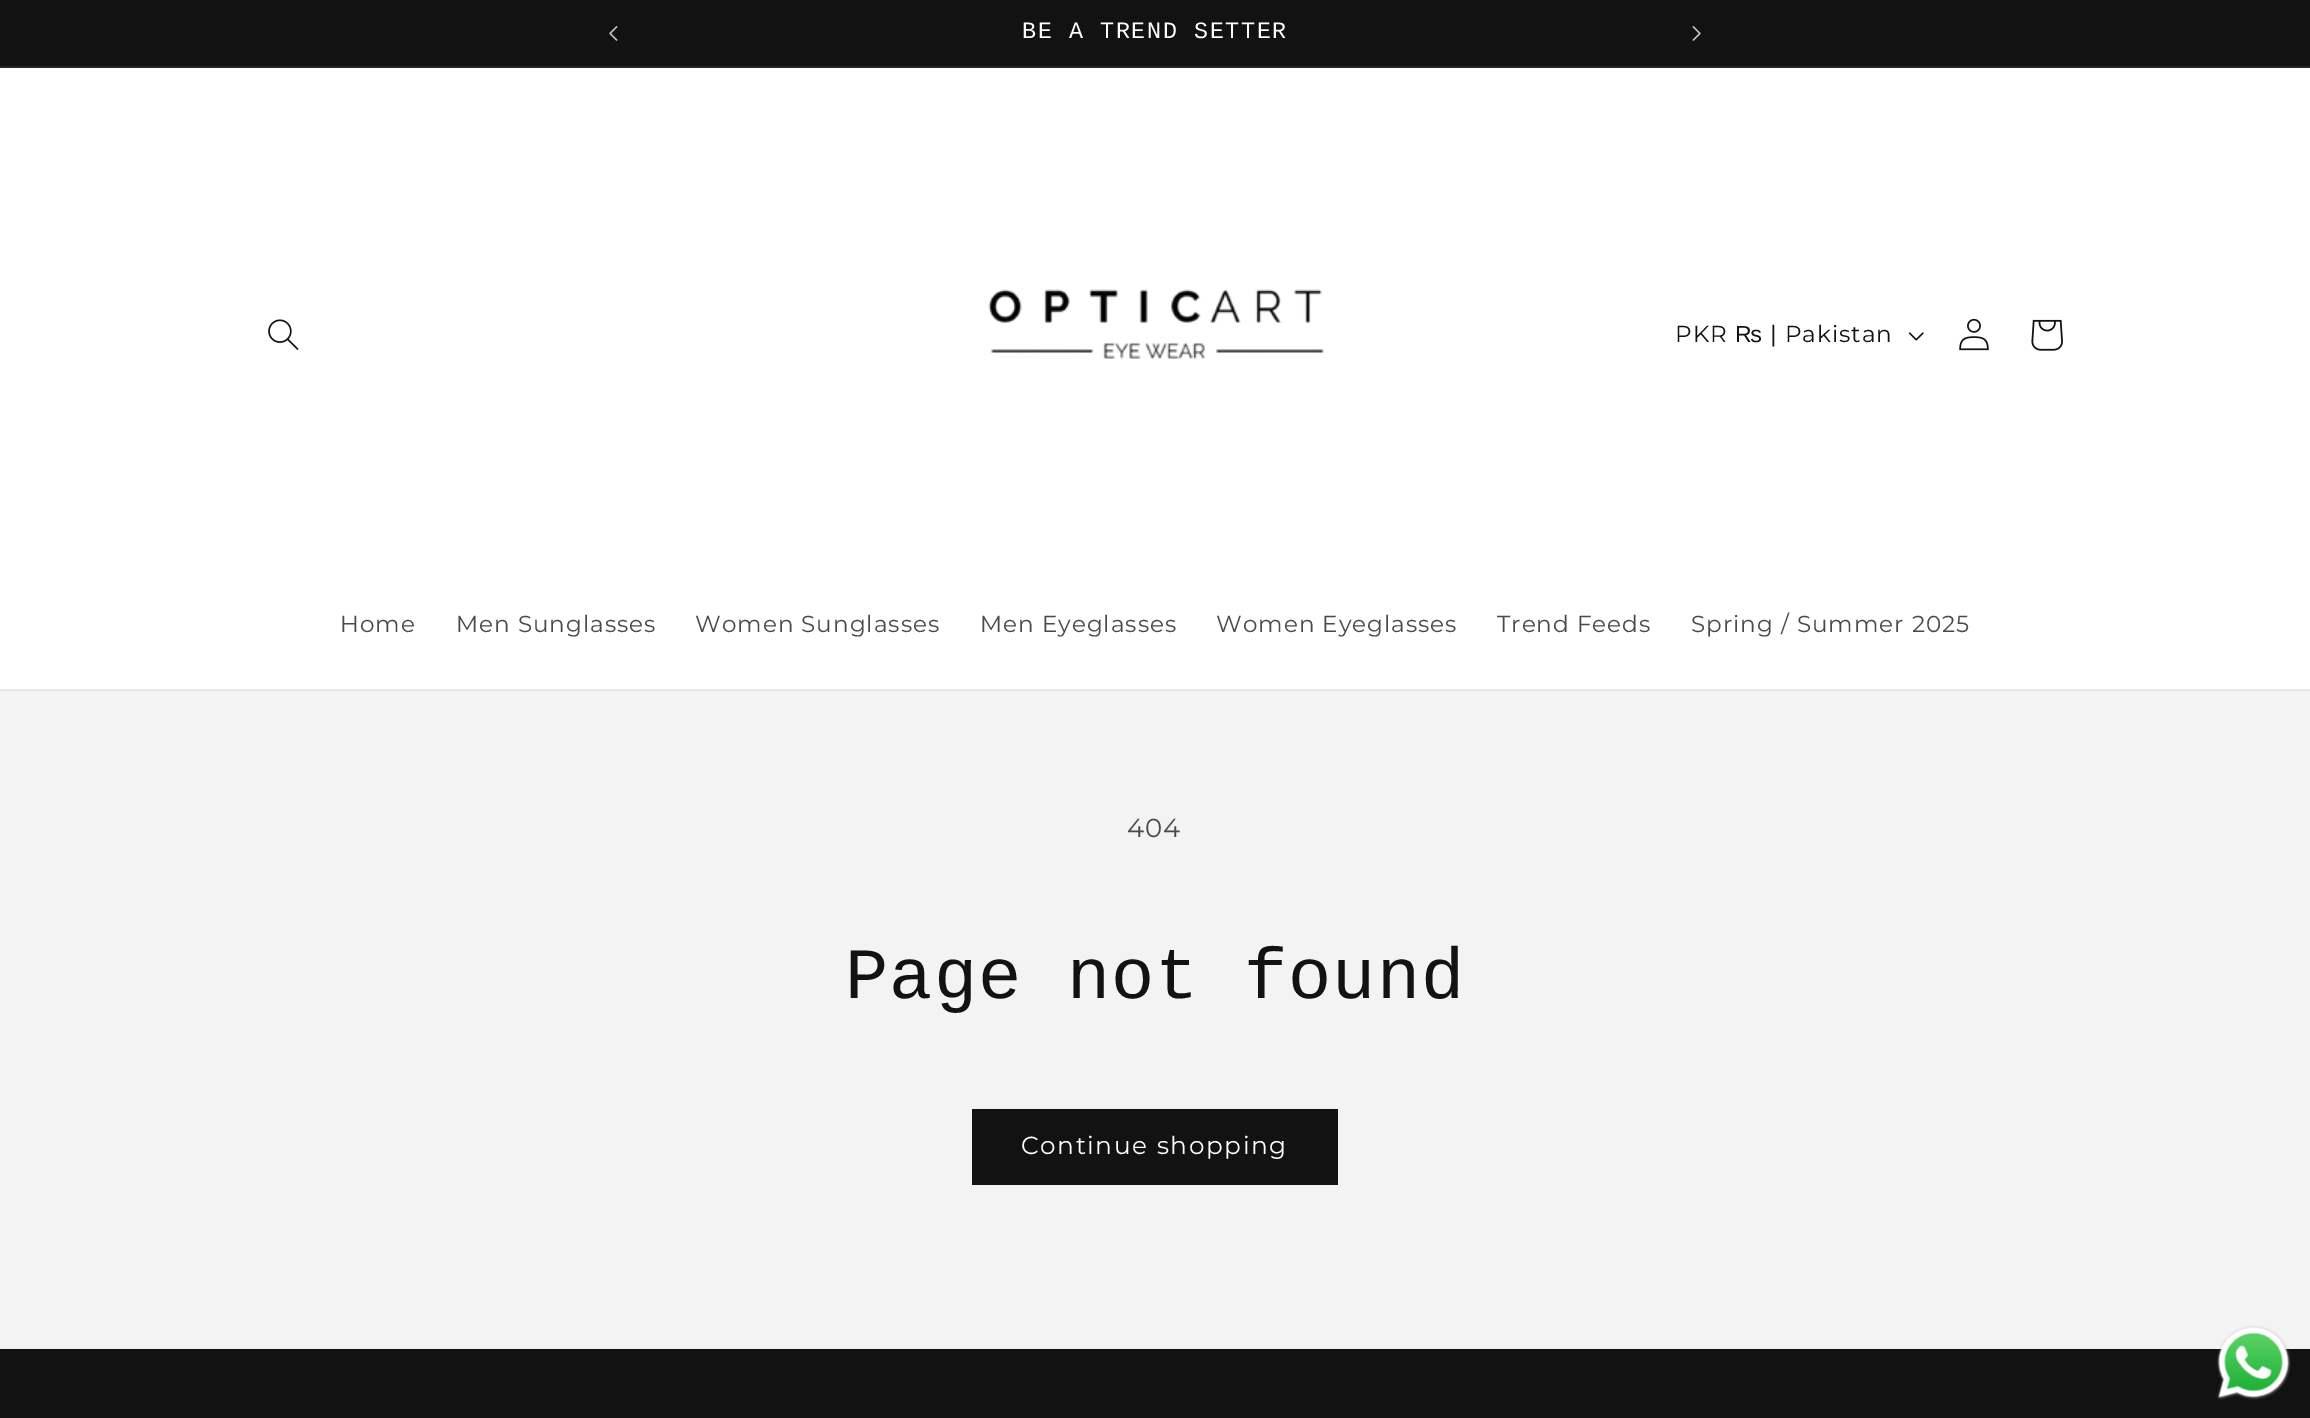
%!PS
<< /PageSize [2310 1418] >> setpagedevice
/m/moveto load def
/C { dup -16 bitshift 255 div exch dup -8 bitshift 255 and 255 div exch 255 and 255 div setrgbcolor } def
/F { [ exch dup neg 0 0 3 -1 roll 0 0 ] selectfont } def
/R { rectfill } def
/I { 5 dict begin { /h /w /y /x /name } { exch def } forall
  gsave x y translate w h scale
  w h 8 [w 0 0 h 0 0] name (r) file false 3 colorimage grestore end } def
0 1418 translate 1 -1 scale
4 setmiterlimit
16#F3F3F3 C
0 0 2310 1418 R
16#E1E1E1 C
0 690 2310 1 R
16#121212 C
0 0 2310 66 R
16#252525 C
0 66 2310 2 R
(1.rgb) 609 26 9 15 I
/LiberationMono-Regular 23.4 F
16#FFFFFF C
1022 38 m 1.6 0 (BE A TREND SETTER) ashow
(2.rgb) 1692 26 9 15 I
0 68 2310 621 R
16#ECECEC C
0 689 2310 1 R
(3.rgb) 268 319 31 31 I
(4.rgb) 988 289 336 70 I
/Montserrat-Regular 23.1 F
16#121212 C
1675 342 m 1 0 (PKR) ashow
/LiberationSans-Regular 23.1 F
1735 342 m 1 0 (₨) ashow
/Montserrat-Regular 23.1 F
1770 342 m 1 0 (| Pakistan) ashow
(5.rgb) 1908 332 16 9 I
(6.rgb) 1959 318 30 33 I
(7.rgb) 2031 319 32 32 I
16#4A4A4A C
340 632 m 1 0 (Home) ashow
456 632 m 1 0 (Men Sunglasses) ashow
695 632 m 1 0 (Women Sunglasses) ashow
980 632 m 1 0 (Men Eyeglasses) ashow
1216 632 m 1 0 (Women Eyeglasses) ashow
1497 632 m 1 0 (Trend Feeds) ashow
1691 632 m 1 0 (Spring / Summer 2025) ashow
/Montserrat-Regular 26 F
1127 837 m 1 0 (404) ashow
/LiberationMono-Regular 72 F
16#121212 C
845 998 m 1.1 0 (Page not found) ashow
972 1109 366 76 R
/Montserrat-Regular 24.75 F
16#FFFFFF C
1021 1154 m 1.6 0 (Continue shopping) ashow
16#121212 C
0 1349 2310 69 R
(8.rgb) 2216 1325 75 75 I
showpage
